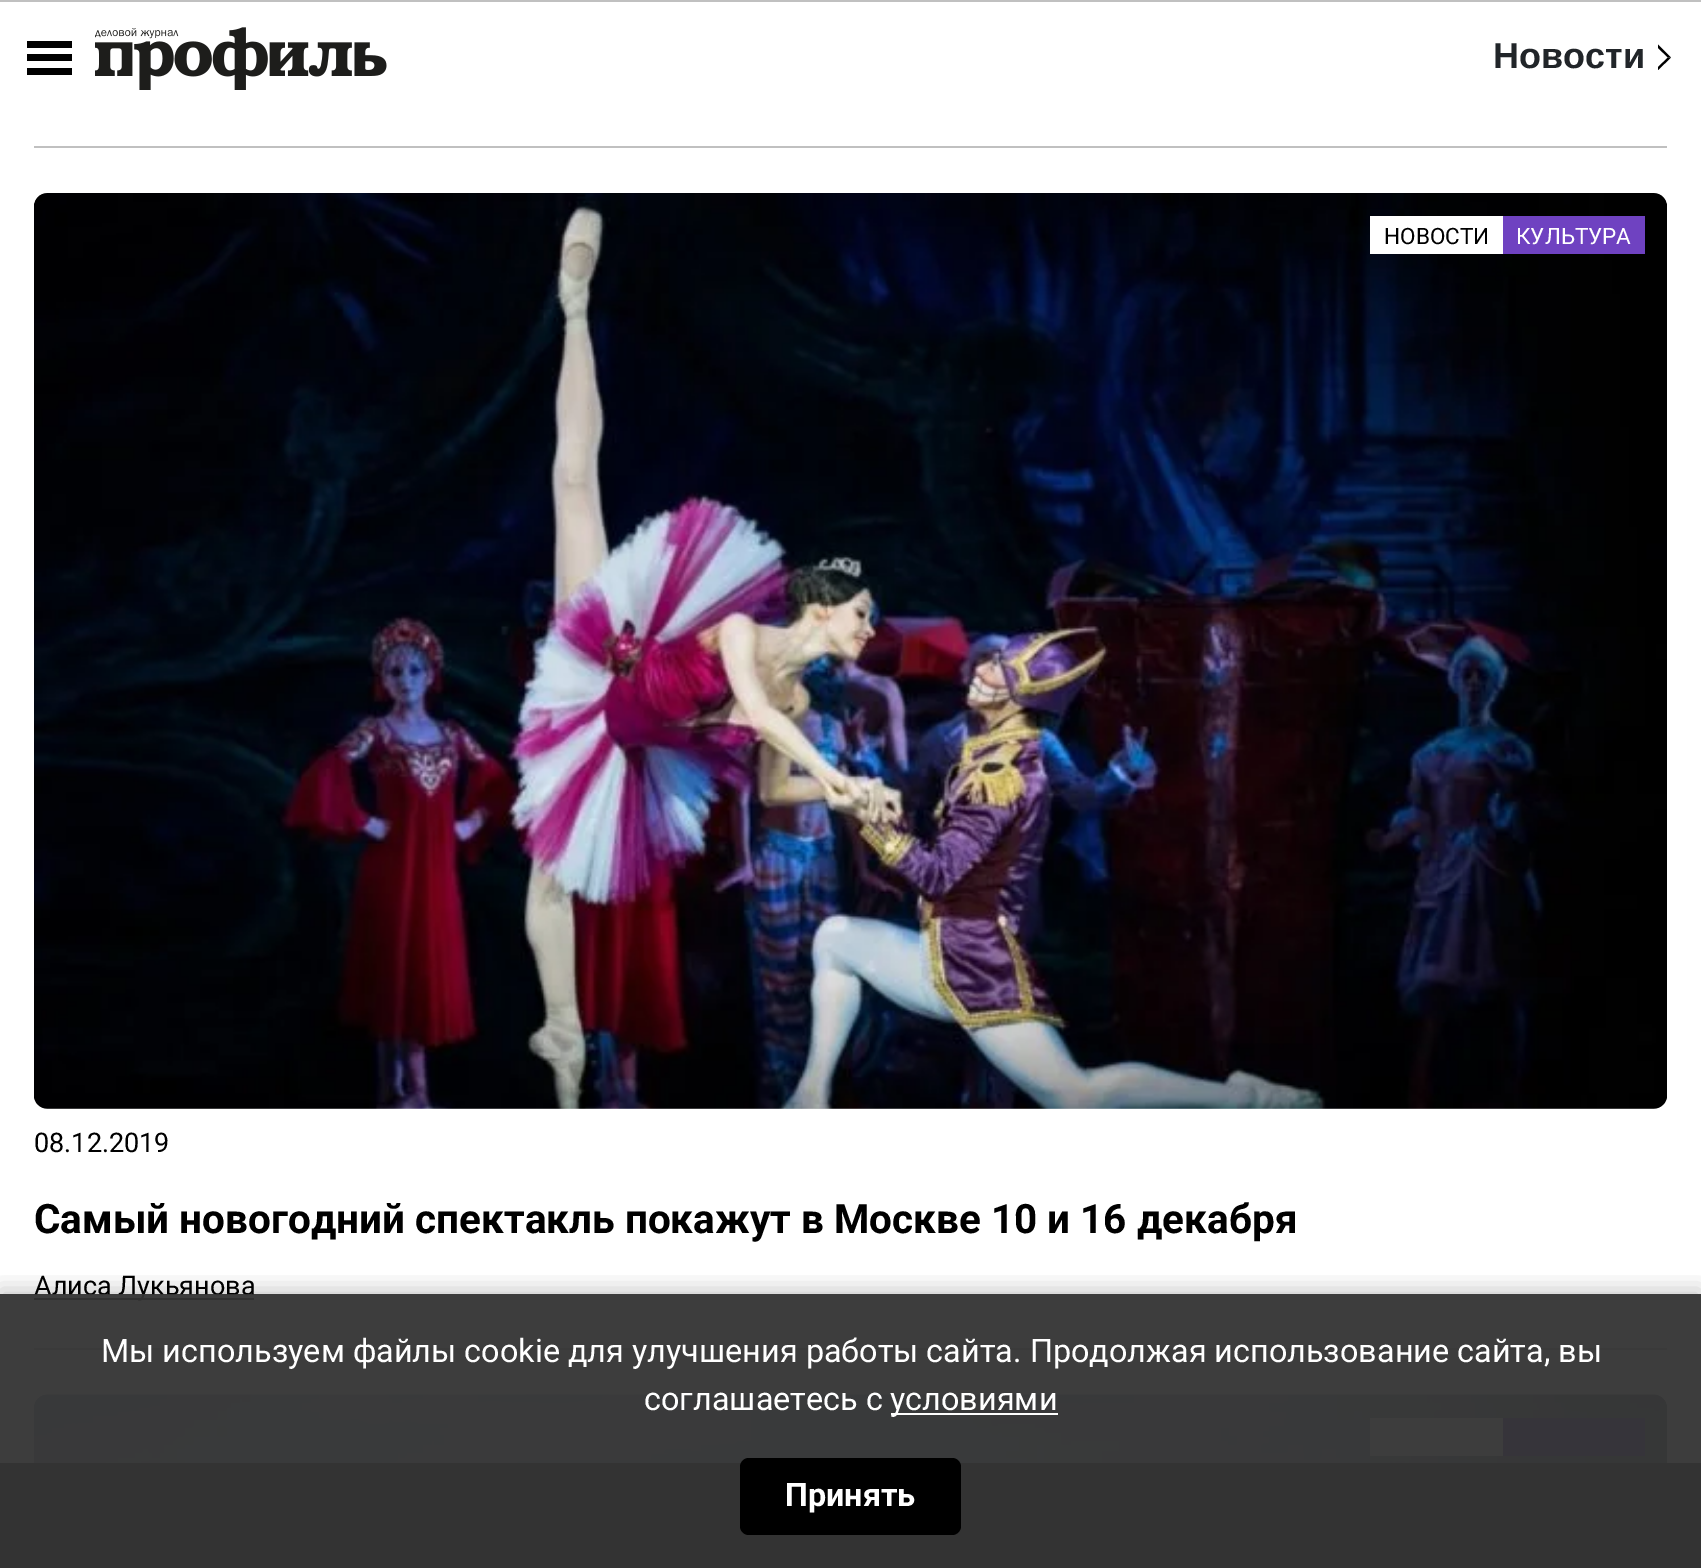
%!PS
<< /PageSize [1701 1568] /PageUsesTransparency true >> setpagedevice
/m/moveto load def
/l/rlineto load def
/z/closepath load def
/f/fill load def
/q/gsave load def
/Q_/grestore load def
/C { dup -16 bitshift 255 div exch dup -8 bitshift 255 and 255 div exch 255 and 255 div setrgbcolor } def
/F { [ exch dup neg 0 0 3 -1 roll 0 0 ] selectfont } def
/T { moveto show } def
/R { rectfill } def
/A { dup .setfillconstantalpha .setstrokeconstantalpha } def
/Q { 5 dict begin { /r /h /w /y /x } { exch def } forall
  x r add y moveto x w add y 2 copy h add r arct x w add y h add x 1 index r arct
  x y h add x y r arct x y 2 copy exch w add exch r arct closepath end } def
/S { 12 dict begin { /a /b /q /h /w /y /x } { exch def } forall gsave /was 0 def
  9 -2 -9 { dup b mul 4 div /e exch def 1 sub .425 mul 2.718 exch exp 1 add a .99 .min exch div /now exch def
    1 1 now sub 1 was sub div sub A /was now def
    w h .min e 2 mul add 0 gt { x e sub y e sub w e 2 mul add h e 2 mul add
      q e add b .6 mul add w h .min 2 div e add .min 0 .max Q fill } if } for grestore end } def
/I { 5 dict begin { /h /w /y /x /name } { exch def } forall
  gsave x y translate w h scale
  w h 8 [w 0 0 h 0 0] name (r) file false 3 colorimage grestore end } def
0 .pushpdf14devicefilter
0 1568 translate 1 -1 scale
4 setmiterlimit
16#FFFFFF C
0 0 1701 1568 R
16#C0C0C0 C
0 0 1701 2 R
16#000000 C
27 54 45 7 R
27 41 45 7 R
27 68 45 7 R
(1.rgb) 95 27 292 63 I
/LiberationSans-Bold 36 F
16#212529 C
(Новости) 1493 68 T
16#000000 C
1671 57.5 m -13 12.5 l 0 -3 l 10 -9.5 l z f
1658 44.5 m 13 13 l -3 0 l -10 -9.5 l z f
16#C0C0C0 C
34 146 1633 2 R
34 1348 1633 2 R
16#ECECEC C
34 194 1633 915 14 Q f
(2.rgb) 34 193 1633 916 I
16#FFFFFF C
1370 216 133 38 R
/Roboto-Regular 22.5 F
16#000000 C
(НОВОСТИ) 1384 244 T
16#6F42C1 C
1503 216 142 38 R
16#FFFFFF C
(КУЛЬТУРА) 1516 244 T
/Roboto-Regular 27 F
16#000000 C
(08.12.2019) 34 1152 T
/Roboto-Bold 40.5 F
(Самый новогодний спектакль покажут в Москве 10 и 16 декабря) 34 1233 T
34 1298 220 2 R
/Roboto-Regular 27 F
(Алиса Лукьянова) 34 1295 T
(3.rgb) 34 1394 1633 69 I
16#FFFFFF C
1370 1418 133 38 R
16#6F42C1 C
1503 1418 142 38 R
16#303030 C
0 1463 1701 105 R
q
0 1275 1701 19 rectclip
16#000000 C
0 1289 1701 275 0 11 .2 S
Q_
0.95 A
16#333333 C
0 1294 1701 274 R
/Roboto-Regular 32.4 F
1 A
16#FFFFFF C
(Мы используем файлы cookie для улучшения работы сайта. Продолжая использование сайта, вы) 101 1362 T
(соглашаетесь с) 644 1410 T
891 1413 167 2 R
(условиями) 890 1410 T
16#000000 C
740 1458 221 77 9 Q f
/Roboto-Bold 32.4 F
16#FFFFFF C
(Принять) 785 1506 T
.poppdf14devicefilter showpage
